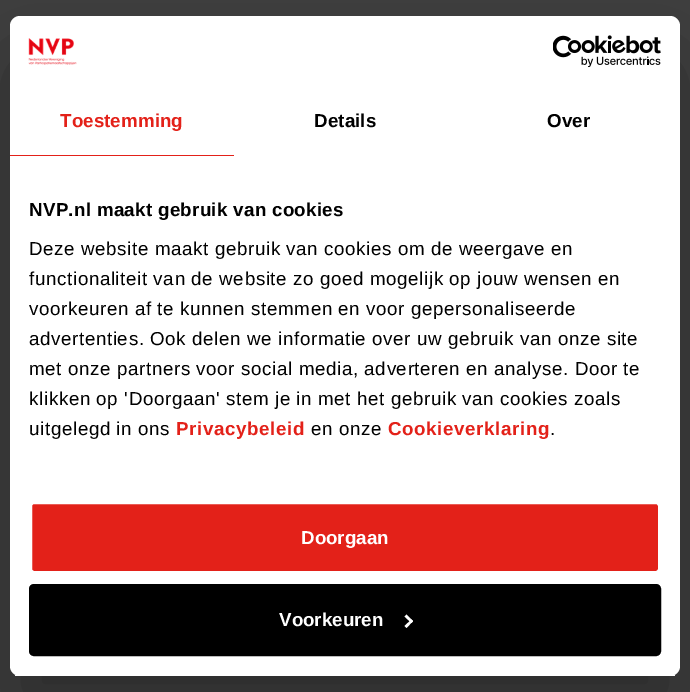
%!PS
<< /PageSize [690 692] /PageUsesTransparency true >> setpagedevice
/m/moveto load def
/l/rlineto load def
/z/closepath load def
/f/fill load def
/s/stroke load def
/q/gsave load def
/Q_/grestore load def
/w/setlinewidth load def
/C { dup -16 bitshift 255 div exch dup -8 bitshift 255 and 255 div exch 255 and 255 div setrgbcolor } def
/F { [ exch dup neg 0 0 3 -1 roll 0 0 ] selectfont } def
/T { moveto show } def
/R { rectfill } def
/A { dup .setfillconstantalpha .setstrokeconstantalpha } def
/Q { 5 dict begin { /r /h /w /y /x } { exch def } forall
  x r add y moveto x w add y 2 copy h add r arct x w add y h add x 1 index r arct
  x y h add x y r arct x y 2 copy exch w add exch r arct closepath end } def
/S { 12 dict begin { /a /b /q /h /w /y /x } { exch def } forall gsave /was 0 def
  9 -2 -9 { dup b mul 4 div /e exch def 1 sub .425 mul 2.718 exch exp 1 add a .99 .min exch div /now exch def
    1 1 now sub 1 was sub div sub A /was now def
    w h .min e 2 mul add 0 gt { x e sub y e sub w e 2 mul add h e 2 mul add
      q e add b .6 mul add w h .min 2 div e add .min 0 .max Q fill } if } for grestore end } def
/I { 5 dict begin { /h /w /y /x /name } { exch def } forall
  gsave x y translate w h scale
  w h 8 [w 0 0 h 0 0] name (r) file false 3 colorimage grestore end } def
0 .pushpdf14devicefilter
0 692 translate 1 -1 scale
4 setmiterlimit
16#404040 C
0 0 690 692 R
16#000000 C
10 56 670 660 10 42.5 .3 S
16#FFFFFF C
10 16 670 660 10 Q f
(1.rgb) 28 38 49 27 I
(2.rgb) 553 35 108 33 I
16#E32119 C
10 155 224 1 R
/LiberationSans-Bold 18.75 F
60 127 m .1 0 (Toestemming) ashow
16#000000 C
314 127 m .1 0 (Details) ashow
547 127 m .1 0 (Over) ashow
29 216 m .3 0 (NVP.nl maakt gebruik van cookies) ashow
/LiberationSans-Regular 18.75 F
29 255 m .62 0 (Deze website maakt gebruik van cookies om de weergave en) ashow
29 285 m .62 0 (functionaliteit van de website zo goed mogelijk op jouw wensen en) ashow
29 315 m .62 0 (voorkeuren af te kunnen stemmen en voor gepersonaliseerde) ashow
29 345 m .62 0 (advertenties. Ook delen we informatie over uw gebruik van onze site) ashow
29 375 m .62 0 (met onze partners voor social media, adverteren en analyse. Door te) ashow
29 405 m .62 0 (klikken op 'Doorgaan' stem je in met het gebruik van cookies zoals) ashow
29 435 m .62 0 (uitgelegd in ons) ashow
/LiberationSans-Bold 18.75 F
16#E32119 C
176 435 m .62 0 (Privacybeleid) ashow
/LiberationSans-Regular 18.75 F
16#000000 C
311 435 m .62 0 (en onze) ashow
/LiberationSans-Bold 18.75 F
16#E32119 C
388 435 m .62 0 (Cookieverklaring) ashow
/LiberationSans-Regular 18.75 F
16#000000 C
550 435 m .62 0 (.) ashow
q
10 16 670 660 10 Q clip newpath
16#FFFFFF C
10 675 670 1 R
Q_
16#E32119 C
30.5 502.5 629 70 3.5 Q q f Q_
16#FFFFFF C
3 w
s
/LiberationSans-Bold 18.75 F
(Doorgaan) 301 544 T
16#000000 C
30.5 585.5 629 69 3.5 Q q f Q_
s
16#FFFFFF C
(Voorkeuren) 279 626 T
406.5 614.5 m 6.5 6.5 l -1.5 2 l -7 -6.5 l z f
411.5 619.5 m 1.5 1.5 l -6.5 7 l -2 -2 l z f
.poppdf14devicefilter showpage
